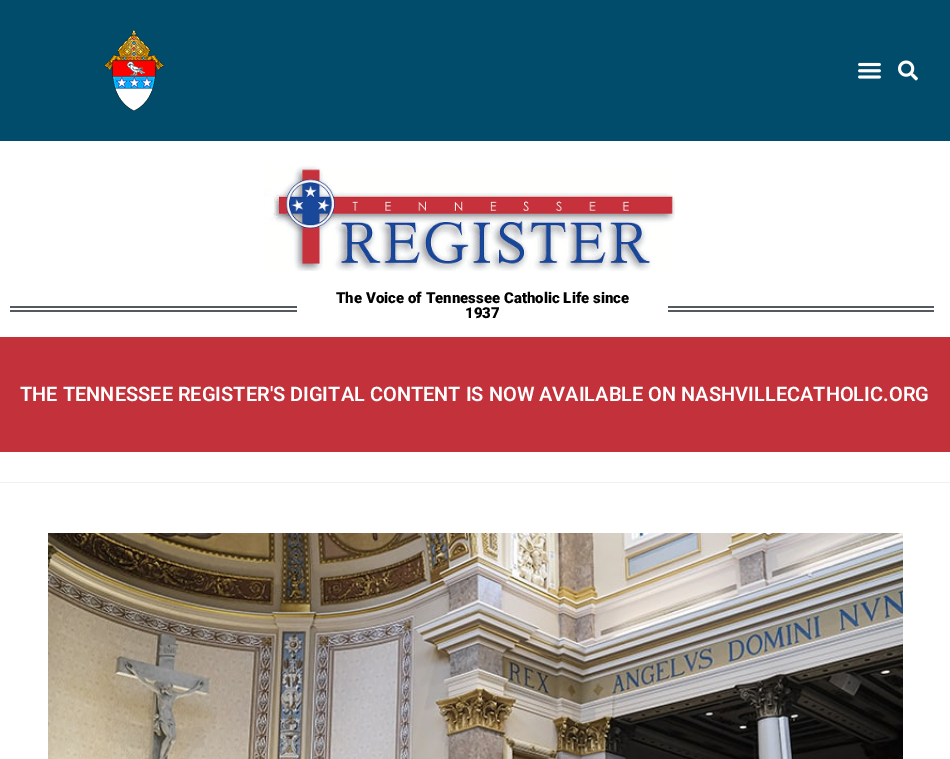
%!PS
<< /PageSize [950 759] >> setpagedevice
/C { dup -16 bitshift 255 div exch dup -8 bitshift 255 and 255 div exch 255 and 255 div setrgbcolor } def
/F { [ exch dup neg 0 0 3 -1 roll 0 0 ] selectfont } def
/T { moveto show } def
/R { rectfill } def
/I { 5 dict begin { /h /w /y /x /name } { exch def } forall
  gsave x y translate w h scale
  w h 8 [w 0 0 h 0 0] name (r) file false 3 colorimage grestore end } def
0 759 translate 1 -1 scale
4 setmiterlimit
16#FFFFFF C
0 0 950 759 R
16#F1F1F1 C
0 482 950 1 R
16#014B6B C
0 0 950 141 R
(1.rgb) 104 30 60 81 I
(2.rgb) 858 62 23 17 I
(3.rgb) 898 60 20 21 I
(4.rgb) 264 165 411 106 I
16#54595F C
10 306 287 2 R
10 310 287 2 R
/Roboto-Black 15 F
16#000000 C
(The Voice of Tennessee Catholic Life since) 336 303 T
(1937) 465 318 T
16#54595F C
668 306 266 2 R
668 310 266 2 R
16#C3323B C
0 337 950 115 R
/Roboto-SemiBold 20 F
16#FFFFFF C
(THE TENNESSEE REGISTER'S DIGITAL CONTENT IS NOW AVAILABLE ON NASHVILLECATHOLIC.ORG) 20 401 T
(5.rgb) 48 533 855 226 I
showpage
